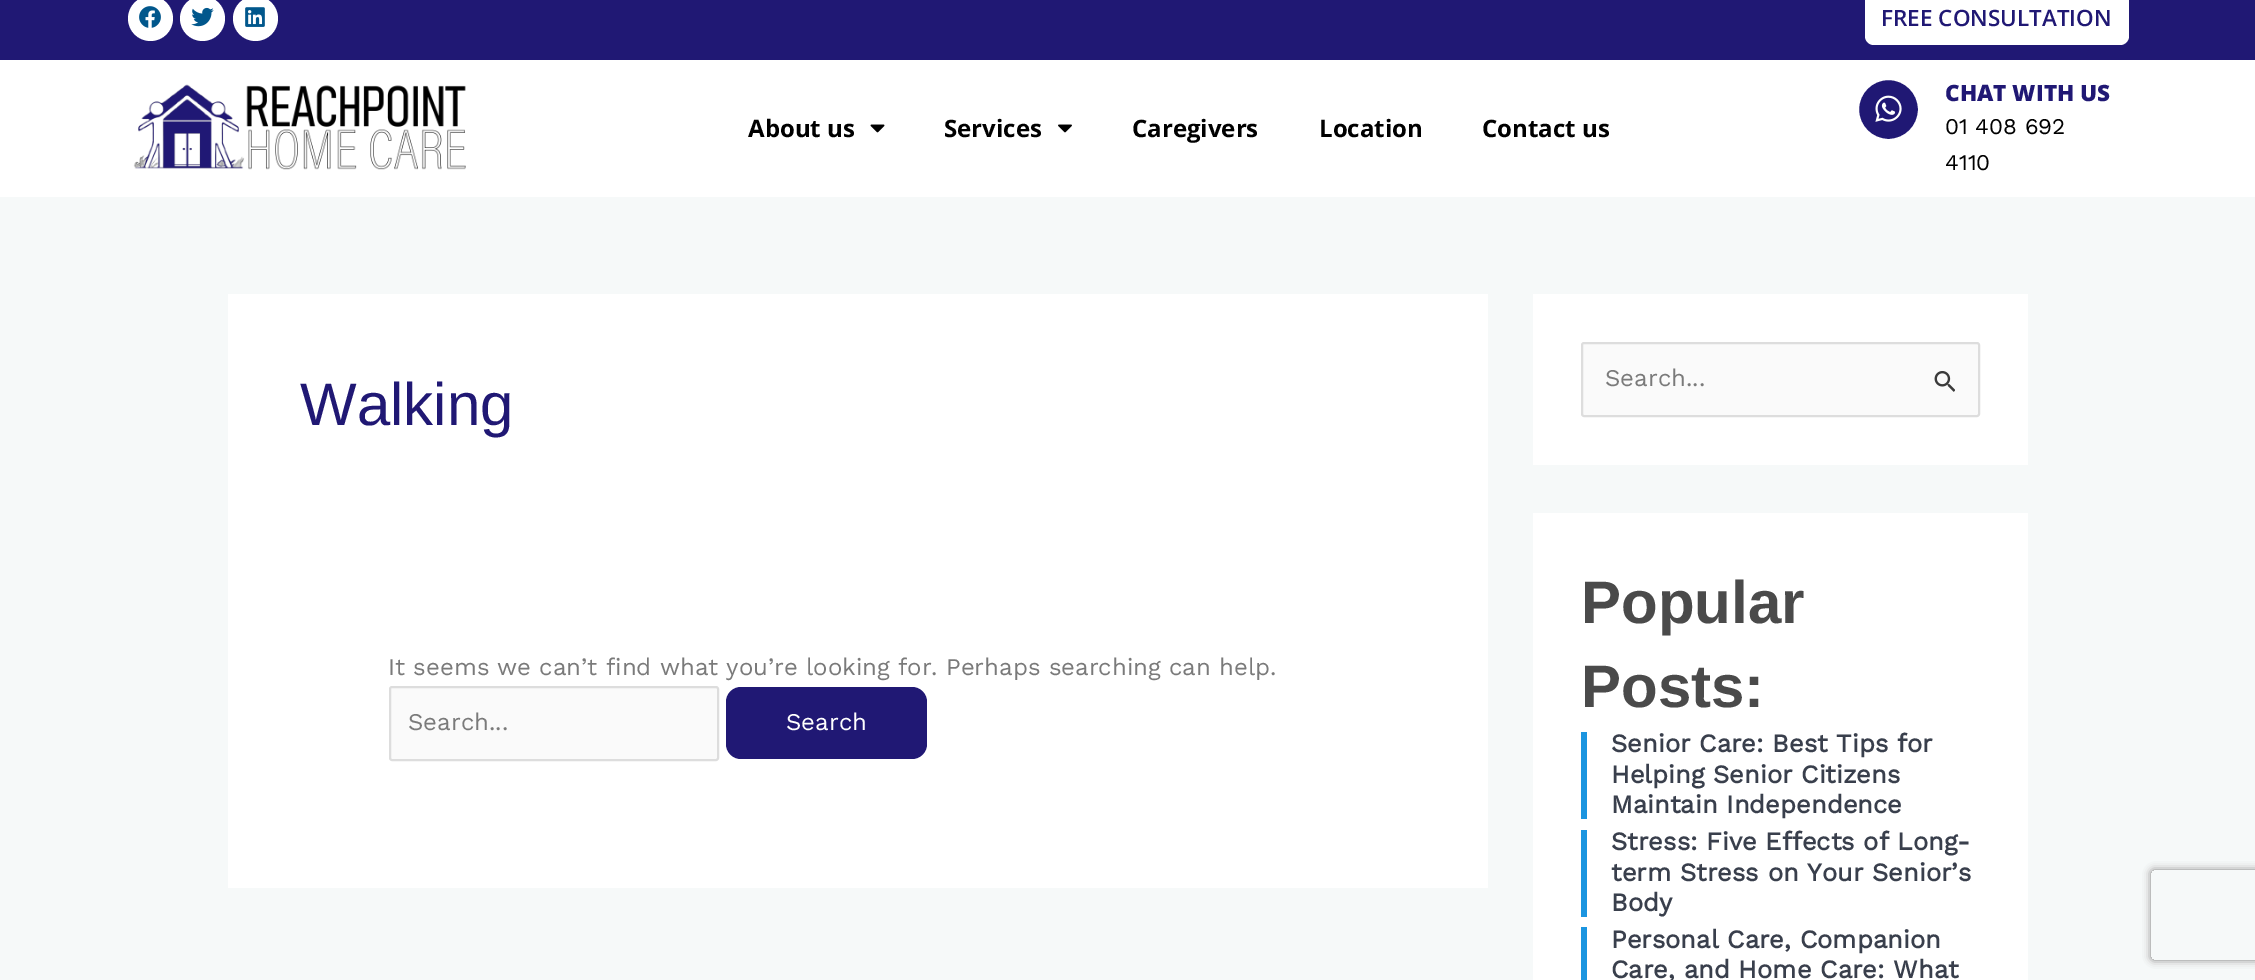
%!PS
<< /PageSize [2255 980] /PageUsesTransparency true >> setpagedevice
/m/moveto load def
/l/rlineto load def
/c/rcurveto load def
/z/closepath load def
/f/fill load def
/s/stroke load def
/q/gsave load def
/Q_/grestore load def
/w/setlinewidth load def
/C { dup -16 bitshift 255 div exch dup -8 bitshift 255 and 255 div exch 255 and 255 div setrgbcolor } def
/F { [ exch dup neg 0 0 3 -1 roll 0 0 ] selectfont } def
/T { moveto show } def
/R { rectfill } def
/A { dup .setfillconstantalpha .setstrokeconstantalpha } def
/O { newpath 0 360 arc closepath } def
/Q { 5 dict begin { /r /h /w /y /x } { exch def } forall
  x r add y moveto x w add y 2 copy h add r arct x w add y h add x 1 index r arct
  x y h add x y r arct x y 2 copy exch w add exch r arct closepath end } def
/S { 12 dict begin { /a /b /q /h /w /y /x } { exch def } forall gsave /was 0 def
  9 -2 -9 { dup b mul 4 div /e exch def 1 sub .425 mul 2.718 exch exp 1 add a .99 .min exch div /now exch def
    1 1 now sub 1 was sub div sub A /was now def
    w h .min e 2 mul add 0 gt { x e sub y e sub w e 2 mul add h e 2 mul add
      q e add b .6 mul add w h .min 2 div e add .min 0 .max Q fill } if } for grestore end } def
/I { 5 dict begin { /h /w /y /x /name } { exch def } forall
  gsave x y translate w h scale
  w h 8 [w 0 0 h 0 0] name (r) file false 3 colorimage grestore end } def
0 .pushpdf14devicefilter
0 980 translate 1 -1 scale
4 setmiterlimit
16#F6F9F9 C
0 0 2255 980 R
16#201874 C
0 0 2255 60 R
16#FFFFFF C
150.5 18.5 22.5 O f
(1.rgb) 139 6 22 22 I
202.5 18.5 22.5 O f
(2.rgb) 191 7 23 20 I
255.5 18.5 22.5 O f
(3.rgb) 245 7 20 20 I
1865 -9 264 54 9 Q f
/OpenSans-SemiBold 22.5 F
16#201874 C
(FREE CONSULTATION) 1881 26 T
16#FFFFFF C
0 60 2255 137 R
(4.rgb) 133 84 333 86 I
/OpenSans-Bold 24 F
16#000000 C
(About us) 748 137 T
(5.rgb) 870 124 15 9 I
(Services) 944 137 T
(6.rgb) 1058 124 14 9 I
(Caregivers) 1132 137 T
(Location) 1319 137 T
(Contact us) 1482 137 T
16#201874 C
1888.5 109.5 32 O q f Q_
16#FFFFFF C
5 w
s
(7.rgb) 1875 95 27 27 I
/OpenSans-ExtraBold 22.5 F
16#201874 C
(CHAT WITH US) 1945 101 T
/WorkSans-Regular 22.5 F
16#000000 C
(01 408 692) 1945 134 T
(4110) 1945 170 T
16#FFFFFF C
228 294 1260 594 R
/LiberationSans-Regular 60 F
16#201874 C
(Walking) 300 425 T
/WorkSans-Regular 24 F
16#7A7A7A C
(It seems we can’t find what you’re looking for. Perhaps searching can help.) 388 675 T
16#FAFAFA C
390 687 328 73 2 Q q f Q_
16#DDDDDD C
2 w
s
16#7A7A7A C
(Search...) 408 730 T
16#201874 C
726 687 201 72 15 Q f
16#FFFFFF C
(Search) 786 730 T
1533 294 495 171 R
16#FAFAFA C
1582 343 397 73 2 Q q f Q_
16#DDDDDD C
s
16#7A7A7A C
(Search...) 1605 386 T
(8.rgb) 1934 371 21 21 I
16#FFFFFF C
1533 513 495 467 R
/LiberationSans-Bold 60 F
16#4A4A4A C
(Popular) 1581 623 T
(Posts:) 1581 707 T
16#1B95E0 C
1581 732 6 87 R
/WorkSans-Bold 25.5 F
16#393F4C C
(Senior Care: Best Tips for) 1611 752 T
(Helping Senior Citizens) 1611 783 T
(Maintain Independence) 1611 813 T
16#1B95E0 C
1581 830 6 87 R
16#393F4C C
(Stress: Five Effects of Long-) 1611 850 T
(term Stress on Your Senior’s) 1611 881 T
(Body) 1611 911 T
16#1B95E0 C
1581 927 6 53 R
16#393F4C C
(Personal Care, Companion) 1611 948 T
(Care, and Home Care: What) 1611 978 T
q
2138 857 m 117 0 l 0 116 l -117 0 l z 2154 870 m 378 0 l 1.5 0 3 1.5 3 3 c 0 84 l 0 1.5 -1.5 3 -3 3 c -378 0 l -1.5 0 -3 -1.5 -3 -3 c 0 -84 l 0 -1.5 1.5 -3 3 -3 c z eoclip newpath
16#808080 C
2151 870 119 90 3 4 1 S
Q_
.poppdf14devicefilter showpage
